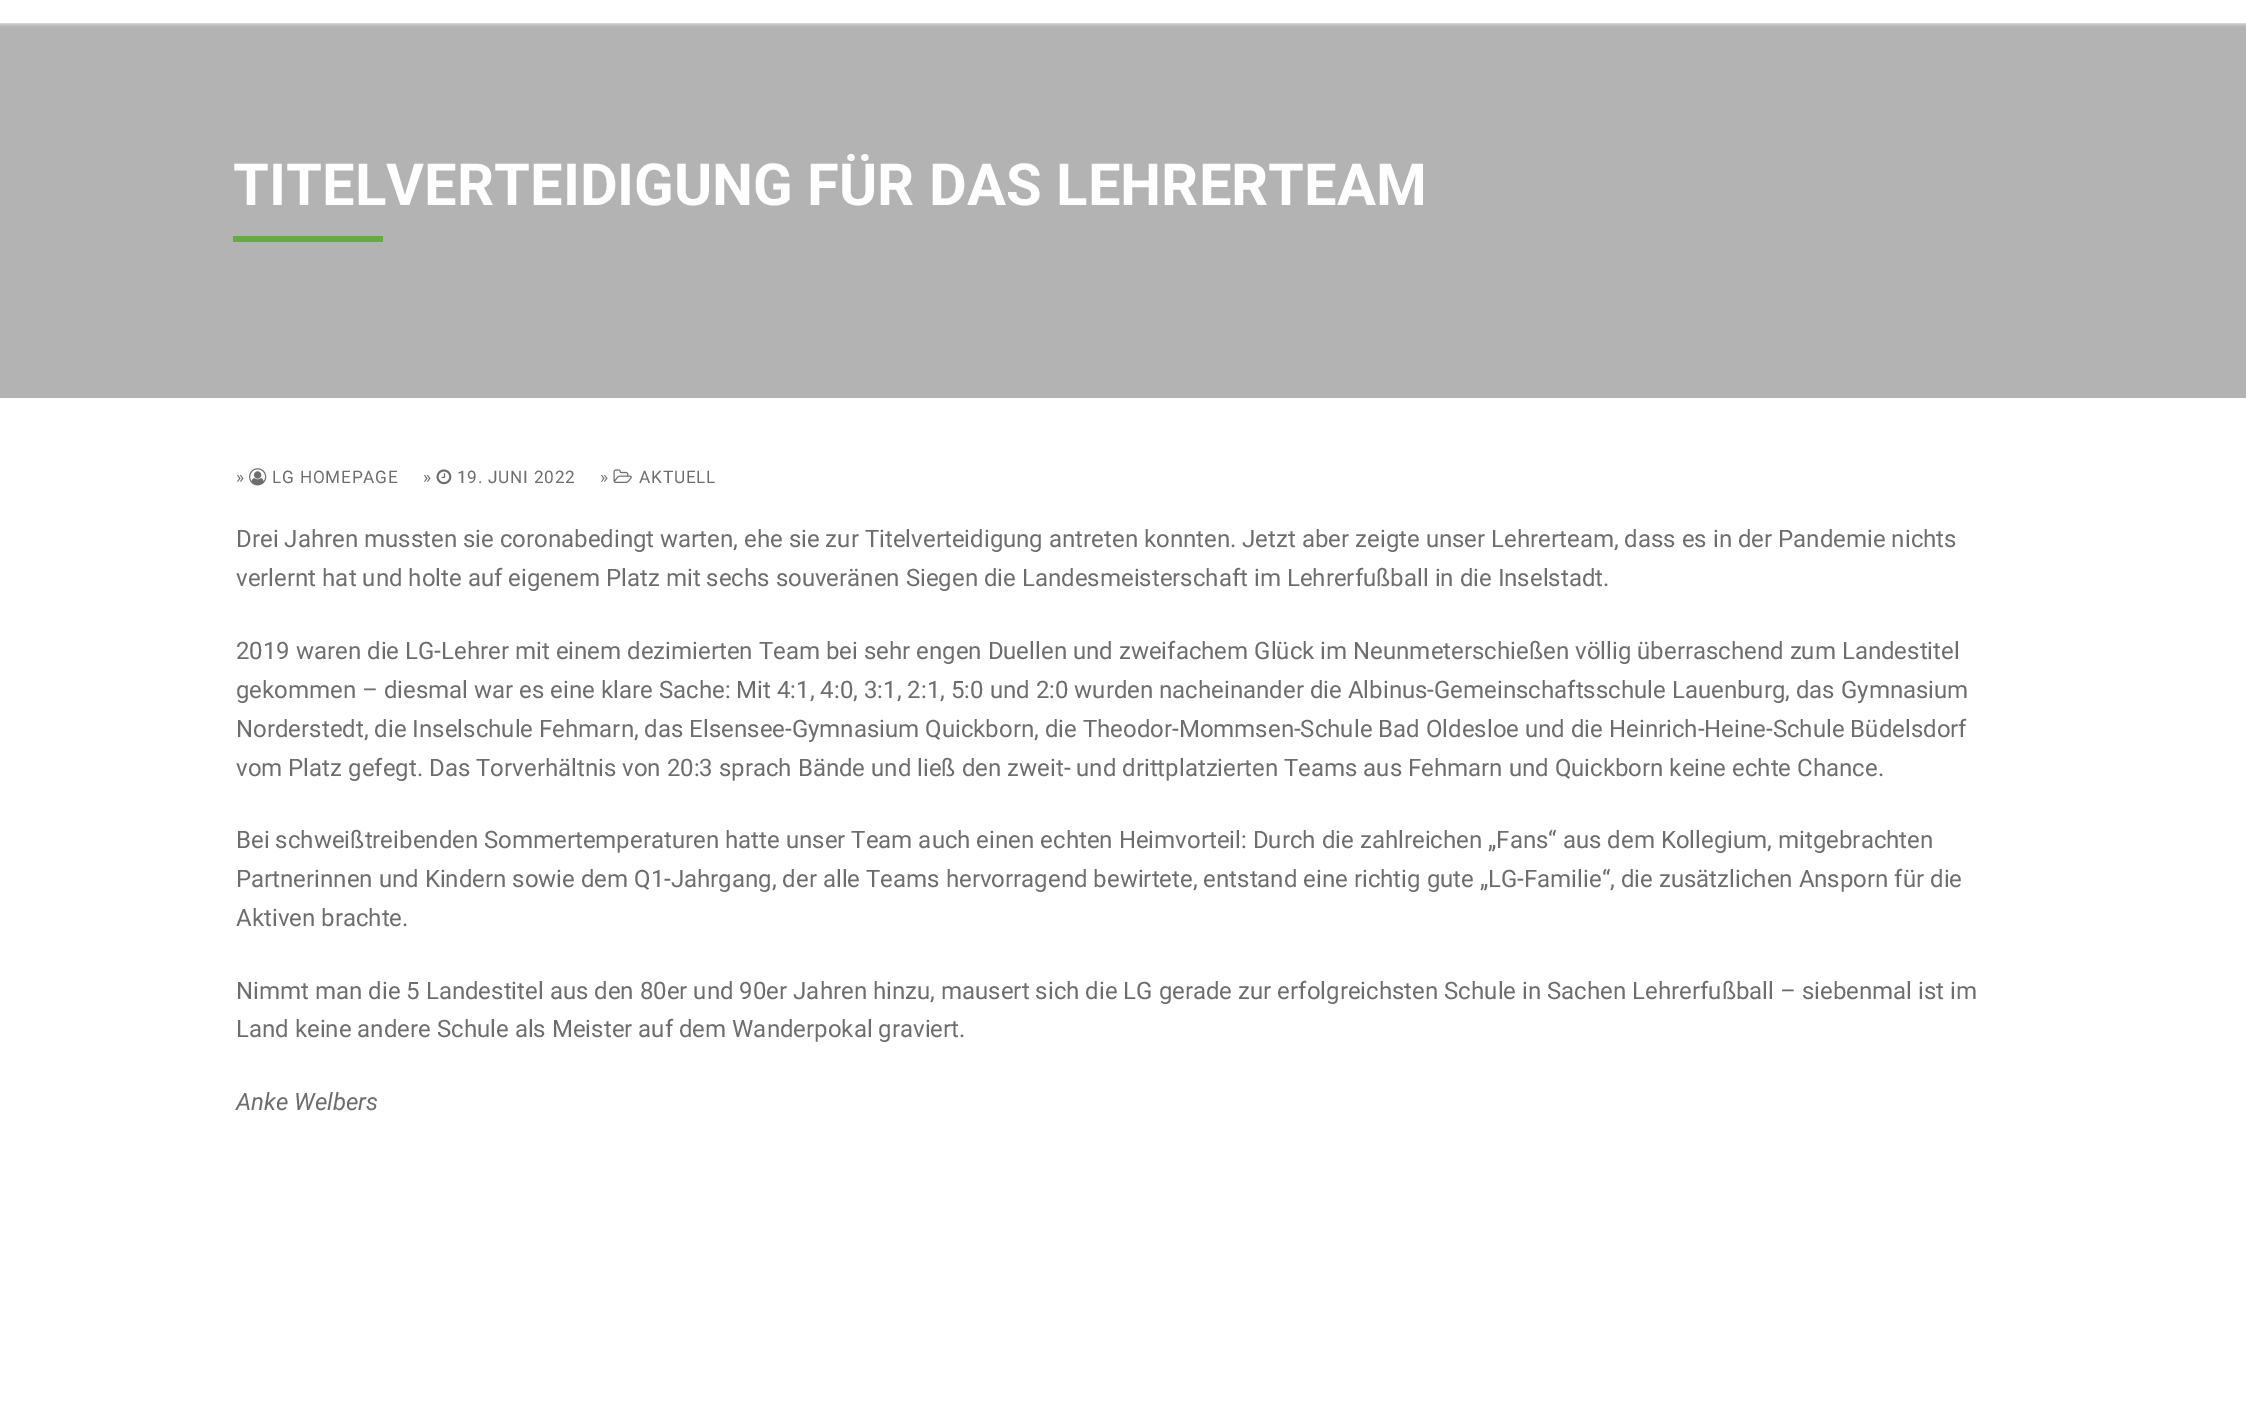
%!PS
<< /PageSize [2246 1423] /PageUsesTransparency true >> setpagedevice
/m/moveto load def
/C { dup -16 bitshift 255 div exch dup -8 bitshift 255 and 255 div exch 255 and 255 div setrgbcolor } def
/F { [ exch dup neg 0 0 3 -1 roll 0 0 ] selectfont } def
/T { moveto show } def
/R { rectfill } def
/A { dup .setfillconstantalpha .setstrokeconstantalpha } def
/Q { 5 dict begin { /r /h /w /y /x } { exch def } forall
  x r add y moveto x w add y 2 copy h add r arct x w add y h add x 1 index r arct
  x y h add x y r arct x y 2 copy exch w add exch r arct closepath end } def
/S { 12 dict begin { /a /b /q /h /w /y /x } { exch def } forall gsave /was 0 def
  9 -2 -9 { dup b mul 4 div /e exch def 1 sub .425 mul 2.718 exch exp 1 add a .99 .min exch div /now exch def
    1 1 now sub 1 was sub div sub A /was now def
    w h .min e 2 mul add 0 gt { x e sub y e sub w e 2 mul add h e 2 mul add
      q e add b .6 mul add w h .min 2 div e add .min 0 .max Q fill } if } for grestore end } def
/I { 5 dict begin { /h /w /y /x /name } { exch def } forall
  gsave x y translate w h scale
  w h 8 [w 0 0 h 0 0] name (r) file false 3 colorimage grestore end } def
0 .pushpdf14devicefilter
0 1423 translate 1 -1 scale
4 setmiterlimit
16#FFFFFF C
0 0 2246 1423 R
16#B3B3B3 C
0 23 2246 375 R
16#E1E5EA C
0 -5 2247 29 0 1.5 1 S
16#FFFFFF C
0 0 2246 23 R
/Roboto-Bold 58.1 F
16#FEFEFE C
(TITELVERTEIDIGUNG FÜR DAS LEHRERTEAM) 233 205 T
16#66AA44 C
233 236 150 6 R
/Roboto-Regular 17.25 F
16#6D6D6D C
236 483 m .75 0 (») ashow
(1.rgb) 249 468 18 18 I
272 483 m .75 0 (LG HOMEPAGE) ashow
423 483 m .75 0 (») ashow
(2.rgb) 436 469 16 16 I
457 483 m .75 0 (19. JUNI 2022) ashow
600 483 m .75 0 (») ashow
(3.rgb) 613 469 19 14 I
639 483 m .75 0 (AKTUELL) ashow
/Roboto-Regular 24 F
(Drei Jahren mussten sie coronabedingt warten, ehe sie zur Titelverteidigung antreten konnten. Jetzt aber zeigte unser Lehrerteam, dass es in der Pandemie nichts) 236 547 T
(verlernt hat und holte auf eigenem Platz mit sechs souveränen Siegen die Landesmeisterschaft im Lehrerfußball in die Inselstadt.) 236 586 T
(2019 waren die LG-Lehrer mit einem dezimierten Team bei sehr engen Duellen und zweifachem Glück im Neunmeterschießen völlig überraschend zum Landestitel) 236 659 T
(gekommen – diesmal war es eine klare Sache: Mit 4:1, 4:0, 3:1, 2:1, 5:0 und 2:0 wurden nacheinander die Albinus-Gemeinschaftsschule Lauenburg, das Gymnasium) 236 698 T
(Norderstedt, die Inselschule Fehmarn, das Elsensee-Gymnasium Quickborn, die Theodor-Mommsen-Schule Bad Oldesloe und die Heinrich-Heine-Schule Büdelsdorf) 236 737 T
(vom Platz gefegt. Das Torverhältnis von 20:3 sprach Bände und ließ den zweit- und drittplatzierten Teams aus Fehmarn und Quickborn keine echte Chance.) 236 776 T
(Bei schweißtreibenden Sommertemperaturen hatte unser Team auch einen echten Heimvorteil: Durch die zahlreichen „Fans“ aus dem Kollegium, mitgebrachten) 236 848 T
(Partnerinnen und Kindern sowie dem Q1-Jahrgang, der alle Teams hervorragend bewirtete, entstand eine richtig gute „LG-Familie“, die zusätzlichen Ansporn für die) 236 887 T
(Aktiven brachte.) 236 926 T
(Nimmt man die 5 Landestitel aus den 80er und 90er Jahren hinzu, mausert sich die LG gerade zur erfolgreichsten Schule in Sachen Lehrerfußball – siebenmal ist im) 236 999 T
(Land keine andere Schule als Meister auf dem Wanderpokal graviert.) 236 1037 T
/Roboto-Italic 24 F
(Anke Welbers) 236 1110 T
.poppdf14devicefilter showpage
